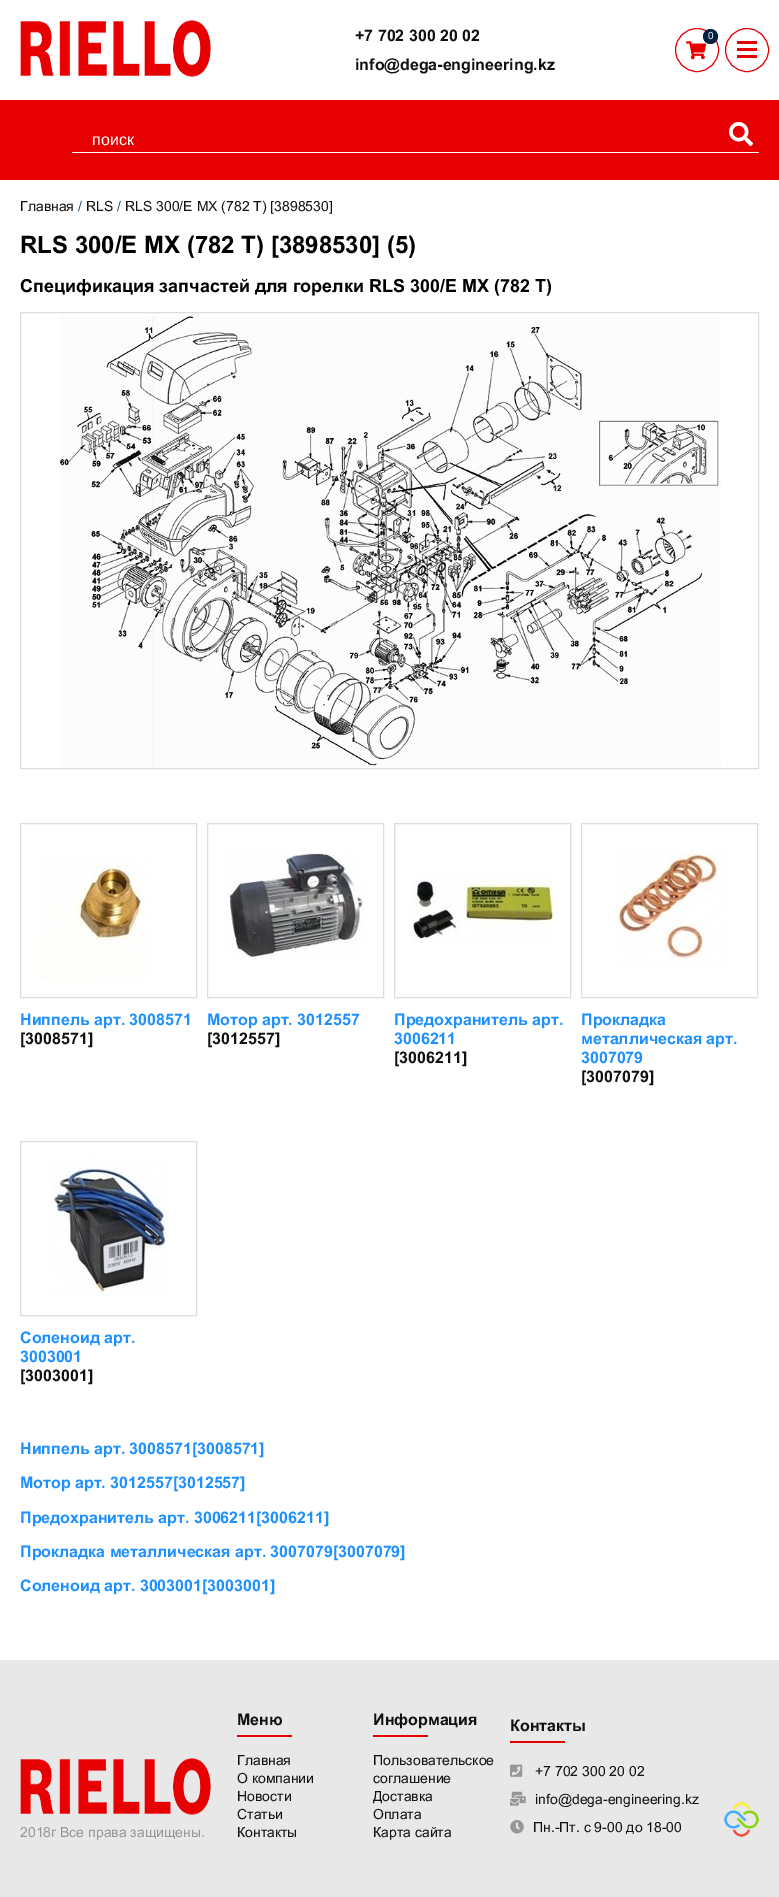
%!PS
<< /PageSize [779 1897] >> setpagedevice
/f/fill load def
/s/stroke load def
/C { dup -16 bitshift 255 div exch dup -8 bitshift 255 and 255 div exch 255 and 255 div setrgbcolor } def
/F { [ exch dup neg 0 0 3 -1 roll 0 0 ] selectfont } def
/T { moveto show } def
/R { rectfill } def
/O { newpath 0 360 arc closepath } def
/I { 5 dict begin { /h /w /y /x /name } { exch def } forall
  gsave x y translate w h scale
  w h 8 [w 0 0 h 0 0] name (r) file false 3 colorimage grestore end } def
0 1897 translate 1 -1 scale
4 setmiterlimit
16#FFFFFF C
0 0 779 1897 R
(1.rgb) 20 20 191 57 I
/Arial-Bold 16 F
16#111111 C
(+7 702 300 20 02) 355 41 T
(info@dega-engineering.kz) 355 70 T
16#E60002 C
697 50 21.5 O s
(2.rgb) 686 41 21 19 I
16#022242 C
710.5 36.5 7.5 O f
/Arial-Regular 10 F
16#FFFFFF C
(0) 708 39 T
16#E60002 C
747 50 21.5 O s
737 48 20 3 R
737 41 20 3 R
737 55 20 3 R
0 100 779 80 R
16#FFFFFF C
72 152 687 1 R
/LiberationSans-Regular 16 F
(поиск) 92 145 T
(3.rgb) 729 122 24 24 I
/Arial-Regular 14 F
16#111111 C
(Главная) 20 211 T
16#1A4A79 C
(/) 78 211 T
16#111111 C
(RLS) 86 211 T
16#1A4A79 C
(/) 117 211 T
16#111111 C
(RLS 300/E MX \(782 T\) [3898530]) 125 211 T
/Arial-Bold 24 F
16#000000 C
(RLS 300/E MX \(782 T\) [3898530] \(5\)) 20 253 T
/Arial-Bold 18 F
(Спецификация запчастей для горелки RLS 300/E MX \(782 T\)) 20 292 T
16#DDDDDD C
20.5 312.5 738 456 rectstroke
(4.rgb) 59 314 662 454 I
(5.rgb) 39 856 110 124 I
20.5 823.5 176 174 rectstroke
/Arial-Bold 16 F
16#1E90FF C
(Ниппель арт. 3008571) 20 1025 T
16#111111 C
([3008571]) 20 1044 T
(6.rgb) 226 850 138 110 I
16#DDDDDD C
207.5 823.5 176 174 rectstroke
16#1E90FF C
(Мотор арт. 3012557) 207 1025 T
16#111111 C
([3012557]) 207 1044 T
(7.rgb) 413 872 140 71 I
16#DDDDDD C
394.5 823.5 176 174 rectstroke
16#1E90FF C
(Предохранитель арт.) 394 1025 T
(3006211) 394 1044 T
16#111111 C
([3006211]) 394 1063 T
(8.rgb) 615 850 113 118 I
16#DDDDDD C
581.5 823.5 176 174 rectstroke
16#1E90FF C
(Прокладка) 581 1025 T
(металлическая арт.) 581 1044 T
(3007079) 581 1063 T
16#111111 C
([3007079]) 581 1082 T
(9.rgb) 50 1158 118 140 I
16#DDDDDD C
20.5 1141.5 176 174 rectstroke
16#1E90FF C
(Соленоид арт.) 20 1343 T
(3003001) 20 1362 T
16#111111 C
([3003001]) 20 1381 T
16#1E90FF C
(Ниппель арт. 3008571[3008571]) 20 1454 T
(Мотор арт. 3012557[3012557]) 20 1488 T
(Предохранитель арт. 3006211[3006211]) 20 1523 T
(Прокладка металлическая арт. 3007079[3007079]) 20 1557 T
(Соленоид арт. 3003001[3003001]) 20 1591 T
16#E8E8E8 C
0 1660 779 237 R
(10.rgb) 20 1758 191 57 I
/Arial-Regular 14 F
16#979797 C
(2018г Все права защищены.) 20 1837 T
/Arial-Bold 16 F
16#111111 C
(Меню) 237 1725 T
16#E60002 C
237 1735 55 2 R
/Arial-Regular 14 F
16#111111 C
(Главная) 237 1765 T
(О компании) 237 1783 T
(Новости) 237 1801 T
(Статьи) 237 1819 T
(Контакты) 237 1837 T
/Arial-Bold 16 F
(Информация) 373 1725 T
16#E60002 C
373 1735 55 2 R
/Arial-Regular 14 F
16#111111 C
(Пользовательское) 373 1765 T
(соглашение) 373 1783 T
(Доставка) 373 1801 T
(Оплата) 373 1819 T
(Карта сайта) 373 1837 T
/Arial-Bold 16 F
(Контакты) 510 1731 T
16#E60002 C
510 1741 55 2 R
(11.rgb) 510 1764 13 13 I
/Arial-Regular 14 F
16#111111 C
(+7 702 300 20 02) 535 1776 T
(12.rgb) 510 1791 16 15 I
(info@dega-engineering.kz) 535 1804 T
(13.rgb) 510 1820 14 14 I
(Пн.-Пт. с 9-00 до 18-00) 533 1832 T
(14.rgb) 724 1802 35 35 I
showpage
